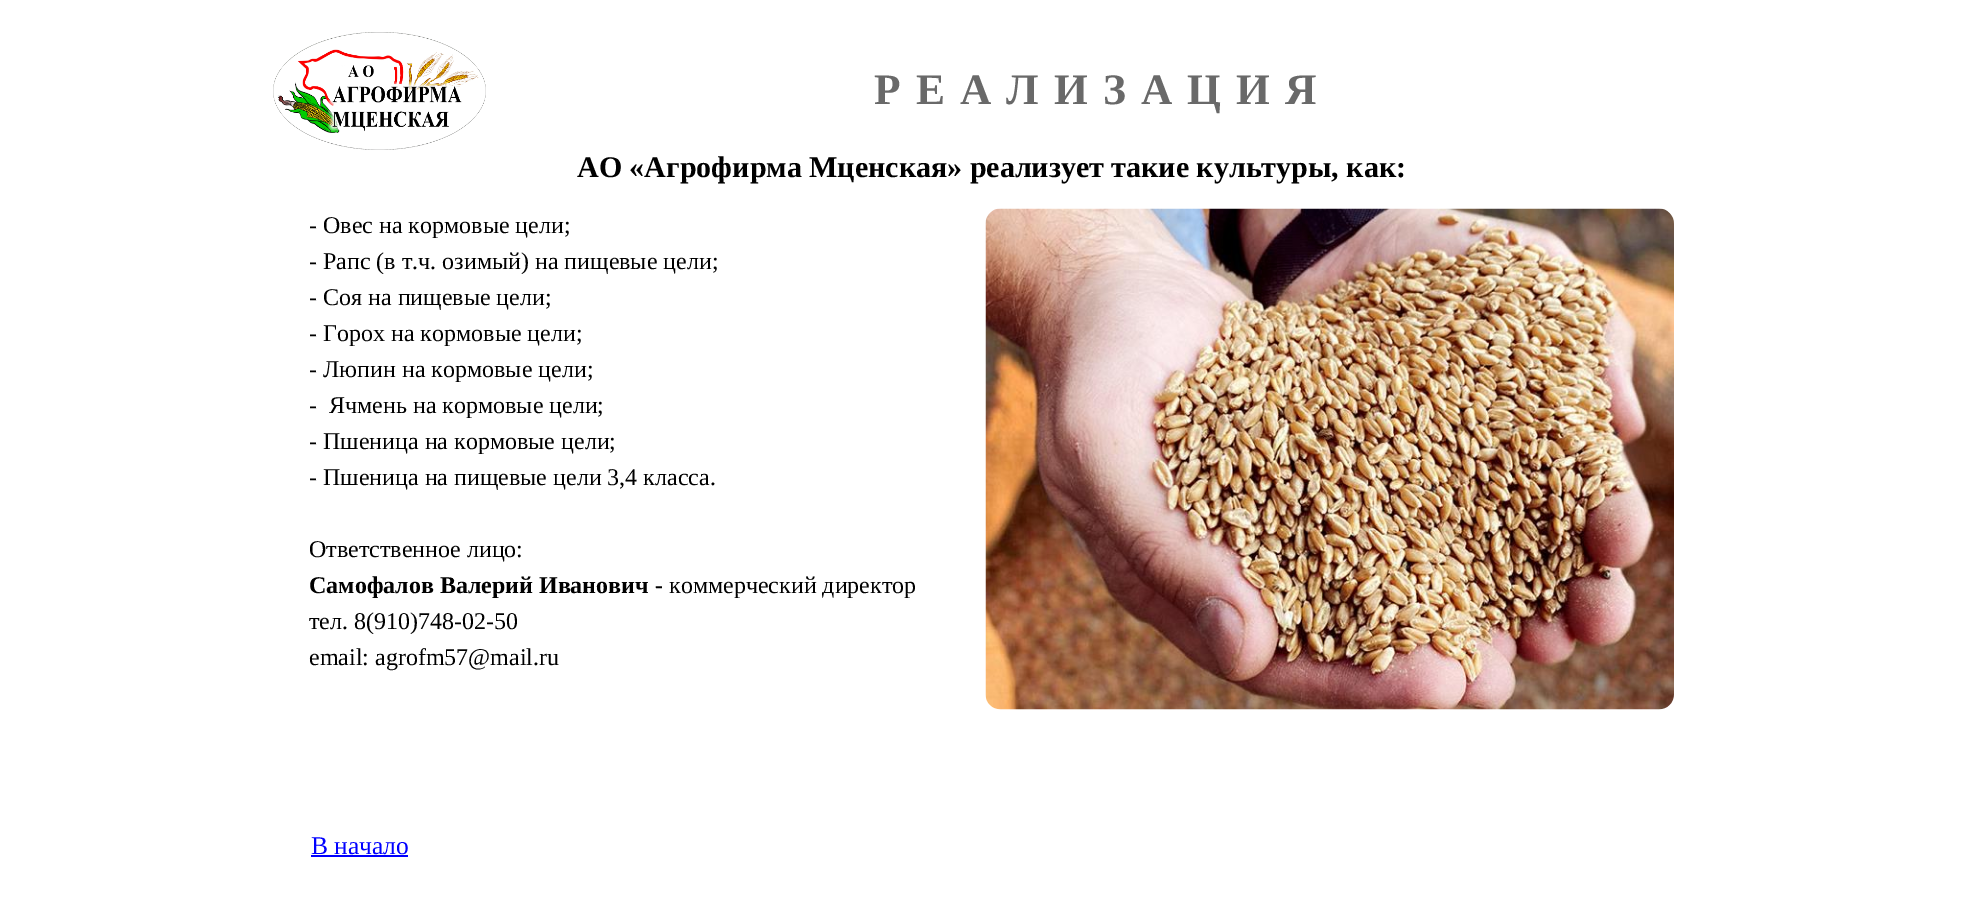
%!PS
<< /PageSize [1982 913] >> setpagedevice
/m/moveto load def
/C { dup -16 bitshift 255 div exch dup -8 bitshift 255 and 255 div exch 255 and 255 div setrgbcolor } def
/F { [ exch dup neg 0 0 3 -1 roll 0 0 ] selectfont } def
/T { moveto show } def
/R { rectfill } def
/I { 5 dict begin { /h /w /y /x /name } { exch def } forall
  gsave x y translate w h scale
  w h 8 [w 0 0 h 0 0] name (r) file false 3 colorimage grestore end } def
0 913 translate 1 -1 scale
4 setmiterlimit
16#FFFFFF C
0 0 1982 913 R
(1.rgb) 273 32 213 118 I
/LiberationSerif-Bold 43.5 F
16#696969 C
874 104 m 15.1 0 (РЕАЛИЗАЦИЯ) ashow
/LiberationSerif-Bold 30 F
16#000000 C
(АО «Агрофирма Мценская» реализует такие культуры, как:) 577 177 T
/LiberationSerif-Regular 24 F
(- Овес на кормовые цели;) 309 233 T
(- Рапс \(в т.ч. озимый\) на пищевые цели;) 309 269 T
(- Соя на пищевые цели;) 309 305 T
(- Горох на кормовые цели;) 309 341 T
(- Люпин на кормовые цели;) 309 377 T
(-  Ячмень на кормовые цели;) 309 413 T
(- Пшеница на кормовые цели;) 309 449 T
(- Пшеница на пищевые цели 3,4 класса.) 309 485 T
(Ответственное лицо:) 309 557 T
/LiberationSerif-Bold 24 F
(Самофалов Валерий Иванович -) 309 593 T
/LiberationSerif-Regular 24 F
(коммерческий директор) 669 593 T
(тел. 8\(910\)748-02-50) 309 629 T
(email: agrofm57@mail.ru) 309 665 T
(2.rgb) 985 208 689 502 I
/LiberationSerif-Regular 25.5 F
16#0000FF C
(В начало) 311 854 T
311 855 97 2 R
showpage
